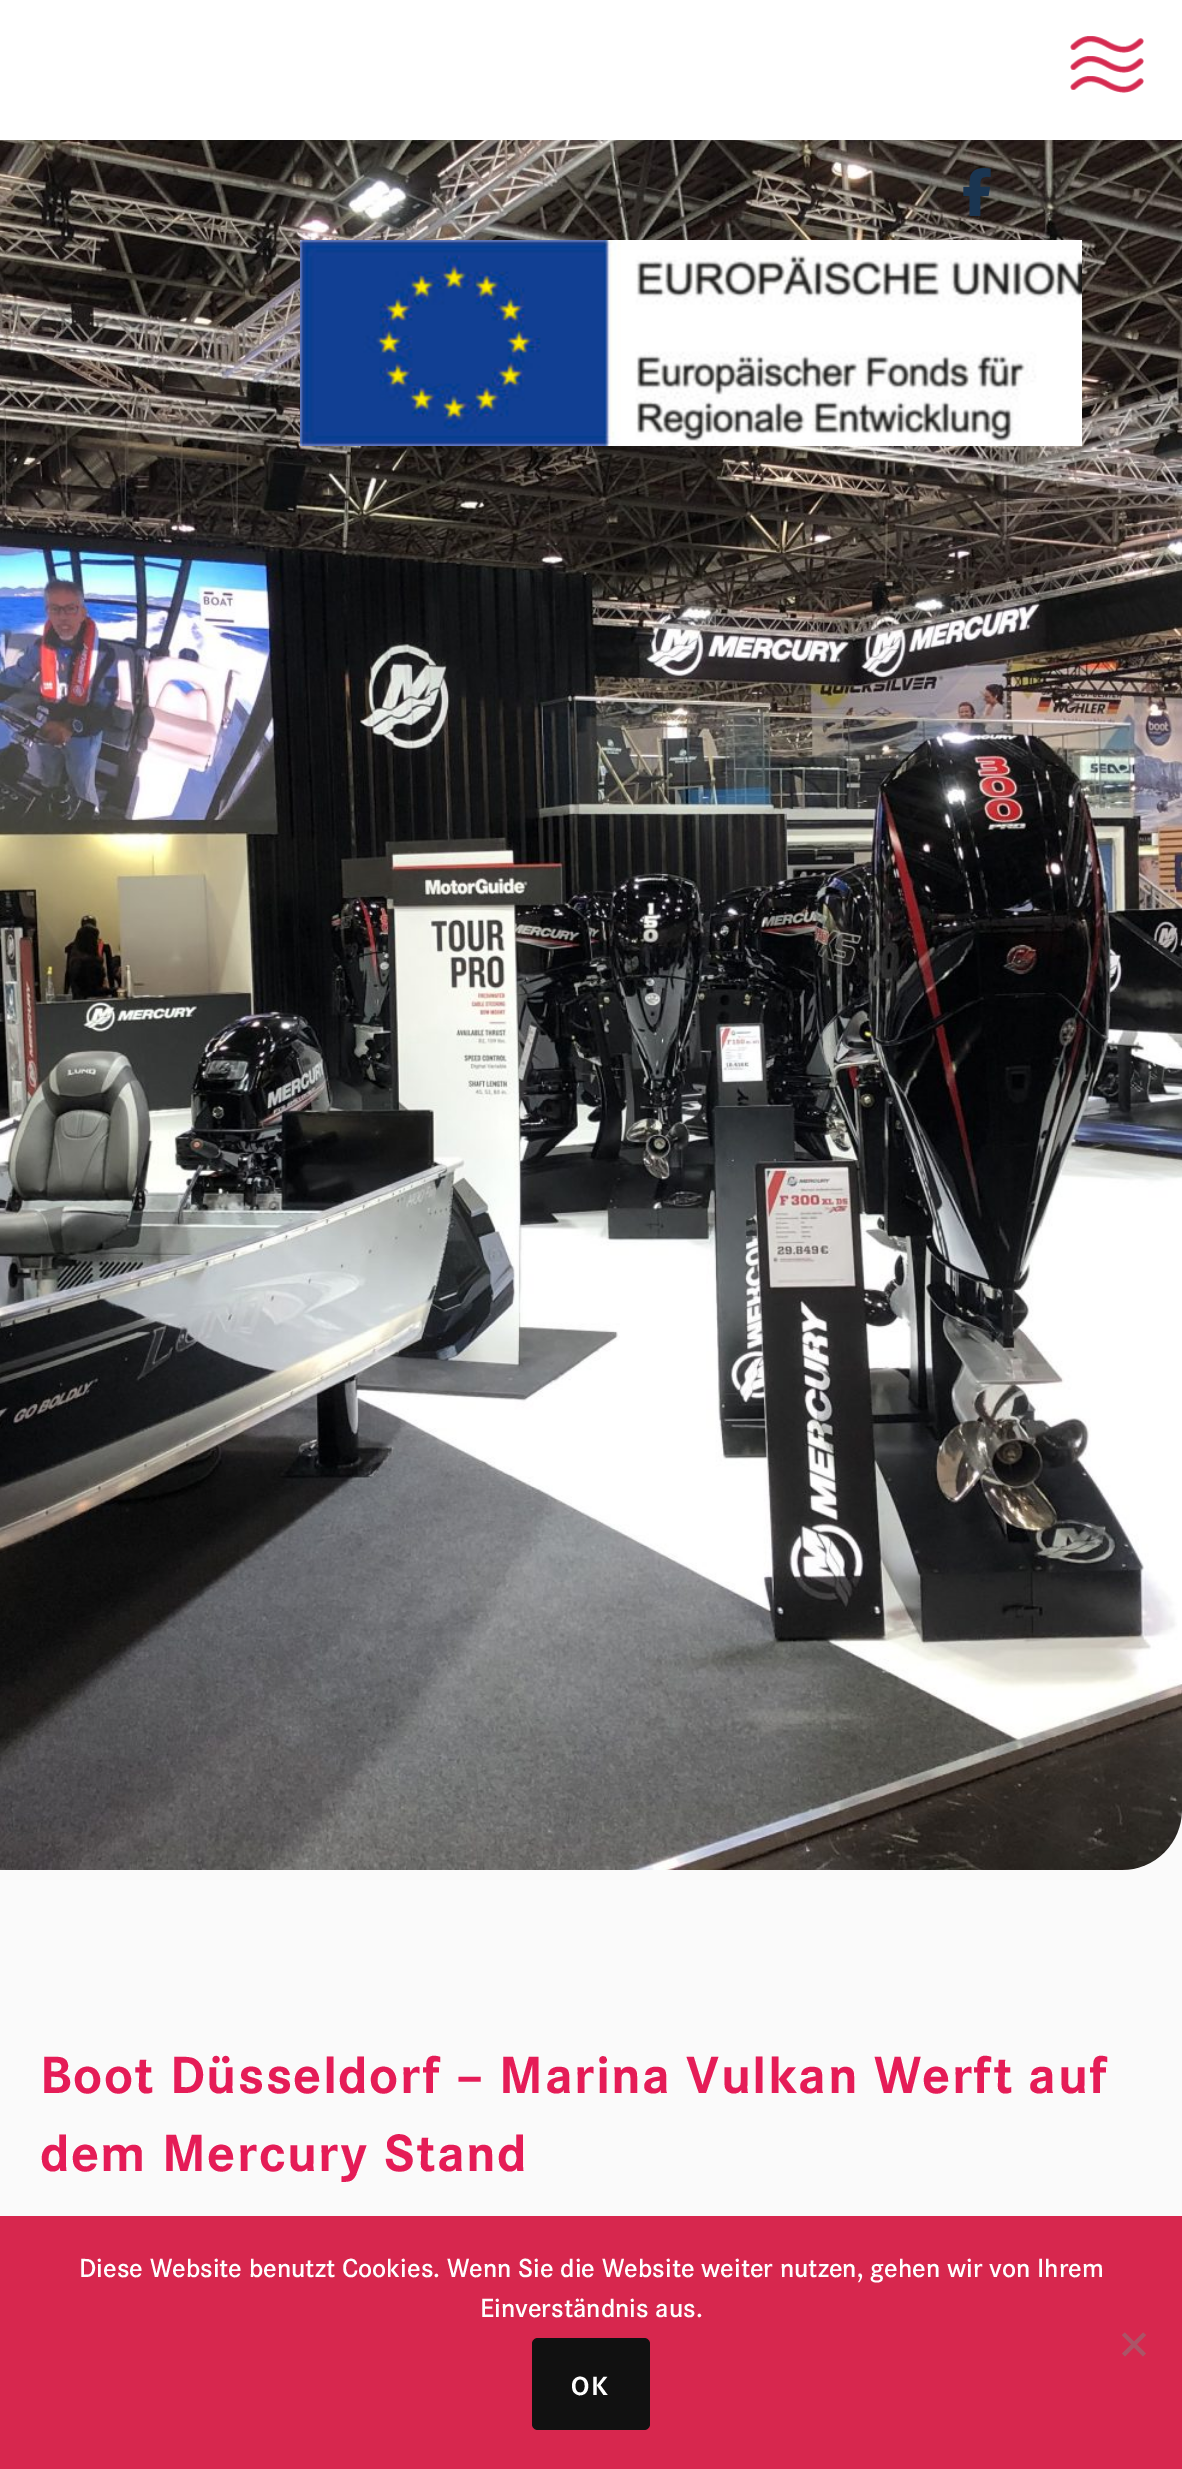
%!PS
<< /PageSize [1182 2469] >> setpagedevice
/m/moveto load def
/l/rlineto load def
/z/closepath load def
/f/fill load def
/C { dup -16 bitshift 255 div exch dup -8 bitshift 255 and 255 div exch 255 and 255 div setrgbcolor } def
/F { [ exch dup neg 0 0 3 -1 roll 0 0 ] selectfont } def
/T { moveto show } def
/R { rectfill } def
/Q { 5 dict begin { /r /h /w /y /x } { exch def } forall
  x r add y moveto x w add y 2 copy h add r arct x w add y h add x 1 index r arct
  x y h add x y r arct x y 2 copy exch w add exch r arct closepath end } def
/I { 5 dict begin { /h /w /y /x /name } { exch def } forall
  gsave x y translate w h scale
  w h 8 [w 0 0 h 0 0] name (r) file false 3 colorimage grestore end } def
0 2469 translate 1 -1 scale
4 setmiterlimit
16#FAFAFA C
0 0 1182 2469 R
16#FFFFFF C
0 0 1182 140 R
(1.rgb) 1070 36 74 17 I
(1.rgb) 1070 56 74 17 I
(2.rgb) 1070 76 74 17 I
(4.rgb) 0 140 1182 1730 I
(3.rgb) 963 168 28 48 I
(5.rgb) 300 240 782 206 I
/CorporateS-Bold 54.4 F
16#E51C57 C
40 2093 m 1.35 0 (Boot Düsseldorf – Marina Vulkan Werft auf) ashow
40 2171 m 1.35 0 (dem Mercury Stand) ashow
16#D7274E C
0 2216 1182 253 R
/CorporateS-SemiBold 27.2 F
16#FFFFFF C
(Diese Website benutzt Cookies. Wenn Sie die Website weiter nutzen, gehen wir von Ihrem) 79 2277 T
(Einverständnis aus.) 480 2317 T
16#AC5467 C
1143 2332.5 m 3 2.5 l -21 21.5 l -3 -3 l z f
1122 2335 m 3 -2.5 l 21 21 l -3 3 l z f
16#111111 C
532 2338 118 92 6 Q f
/CorporateS-Bold 27.2 F
16#FFFFFF C
571 2395 m 2 0 (OK) ashow
showpage
